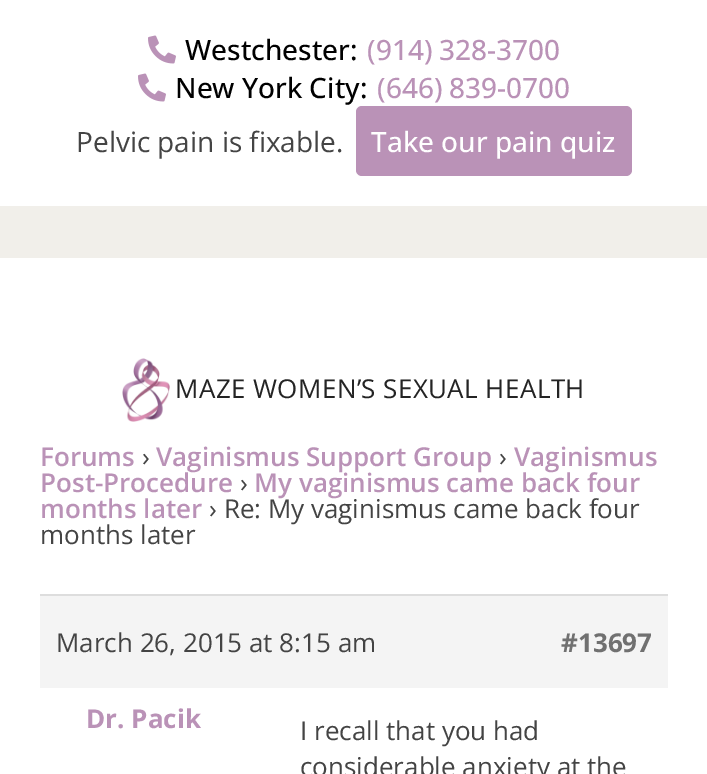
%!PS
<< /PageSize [707 774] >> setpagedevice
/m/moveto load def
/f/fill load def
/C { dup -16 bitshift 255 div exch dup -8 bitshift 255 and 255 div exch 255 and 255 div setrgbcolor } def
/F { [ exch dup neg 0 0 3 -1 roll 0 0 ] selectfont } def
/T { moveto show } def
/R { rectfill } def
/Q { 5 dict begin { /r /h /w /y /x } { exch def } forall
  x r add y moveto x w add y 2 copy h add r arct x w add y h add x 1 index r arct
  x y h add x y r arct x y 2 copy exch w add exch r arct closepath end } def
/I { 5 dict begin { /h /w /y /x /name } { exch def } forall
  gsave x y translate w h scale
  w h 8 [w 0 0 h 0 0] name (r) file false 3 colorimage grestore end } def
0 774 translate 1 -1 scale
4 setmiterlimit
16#FFFFFF C
0 0 707 774 R
(1.rgb) 148 35 28 29 I
/OpenSans-Medium 28 F
16#000000 C
(Westchester:) 185 60 T
16#BA92B7 C
(\(914\) 328-3700) 367 60 T
(1.rgb) 138 73 28 29 I
16#000000 C
(New York City:) 175 98 T
16#BA92B7 C
(\(646\) 839-0700) 377 98 T
/OpenSans-Regular 28 F
16#444444 C
(Pelvic pain is fixable.) 76 152 T
16#BA92B7 C
356 106 276 70 6 Q f
/OpenSans-Medium 28 F
16#FFFFFF C
(Take our pain quiz) 371 152 T
16#F1EFEA C
0 206 707 52 R
(2.rgb) 122 358 48 64 I
/OpenSans-Regular 26 F
16#242424 C
175 398 m .4 0 (MAZE WOMEN’S SEXUAL HEALTH) ashow
/OpenSans-SemiBold 26 F
16#BA92B7 C
(Forums) 40 466 T
/OpenSans-Regular 26 F
16#444444 C
(›) 142 466 T
/OpenSans-SemiBold 26 F
16#BA92B7 C
(Vaginismus Support Group) 156 466 T
/OpenSans-Regular 26 F
16#444444 C
(›) 499 466 T
/OpenSans-SemiBold 26 F
16#BA92B7 C
(Vaginismus) 514 466 T
(Post-Procedure) 40 492 T
/OpenSans-Regular 26 F
16#444444 C
(›) 240 492 T
/OpenSans-SemiBold 26 F
16#BA92B7 C
(My vaginismus came back four) 254 492 T
(months later) 40 518 T
/OpenSans-Regular 26 F
16#444444 C
(› Re: My vaginismus came back four) 209 518 T
(months later) 40 544 T
16#F4F4F4 C
40 596 628 92 R
16#DDDDDD C
40 594 628 2 R
16#444444 C
(March 26, 2015 at 8:15 am) 56 652 T
/OpenSans-Bold 26 F
16#707070 C
(#13697) 561 652 T
16#BA92B7 C
(Dr. Pacik) 86 728 T
/OpenSans-Regular 26 F
16#444444 C
(I recall that you had) 300 740 T
(considerable anxiety at the) 300 776 T
showpage
